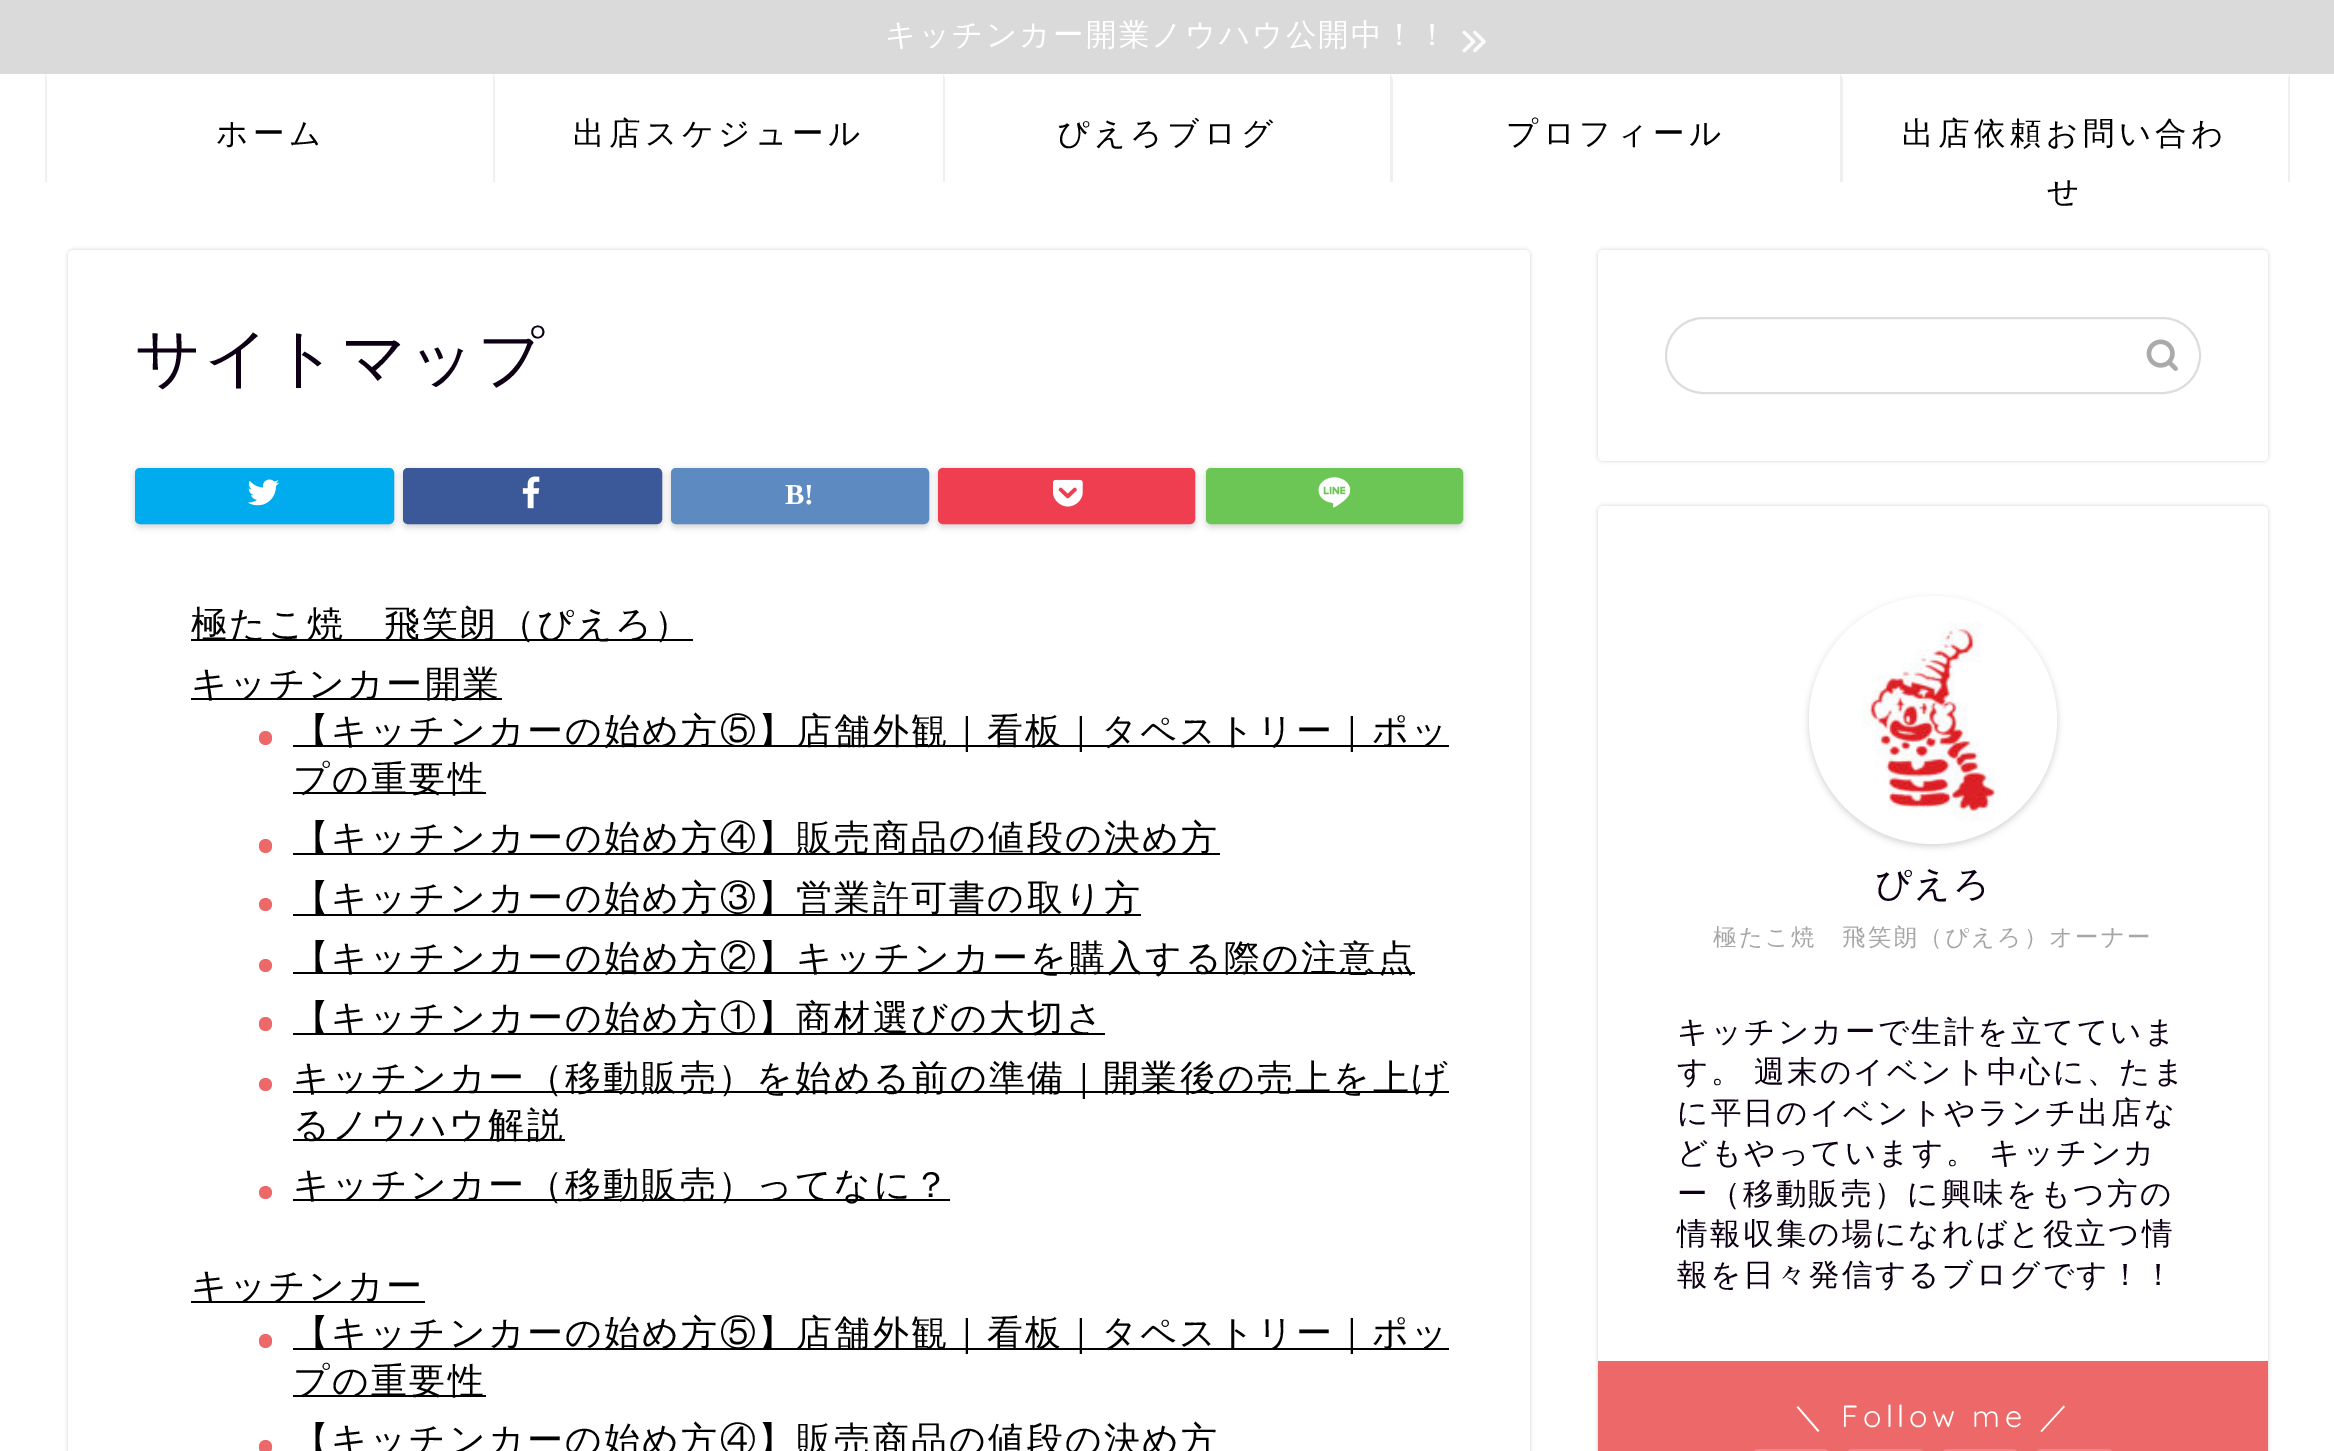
%!PS
<< /PageSize [2334 1451] /PageUsesTransparency true >> setpagedevice
/m/moveto load def
/l/rlineto load def
/z/closepath load def
/f/fill load def
/s/stroke load def
/q/gsave load def
/Q_/grestore load def
/w/setlinewidth load def
/C { dup -16 bitshift 255 div exch dup -8 bitshift 255 and 255 div exch 255 and 255 div setrgbcolor } def
/F { [ exch dup neg 0 0 3 -1 roll 0 0 ] selectfont } def
/T { moveto show } def
/R { rectfill } def
/A { dup .setfillconstantalpha .setstrokeconstantalpha } def
/O { newpath 0 360 arc closepath } def
/Q { 5 dict begin { /r /h /w /y /x } { exch def } forall
  x r add y moveto x w add y 2 copy h add r arct x w add y h add x 1 index r arct
  x y h add x y r arct x y 2 copy exch w add exch r arct closepath end } def
/S { 12 dict begin { /a /b /q /h /w /y /x } { exch def } forall gsave /was 0 def
  9 -2 -9 { dup b mul 4 div /e exch def 1 sub .425 mul 2.718 exch exp 1 add a .99 .min exch div /now exch def
    1 1 now sub 1 was sub div sub A /was now def
    w h .min e 2 mul add 0 gt { x e sub y e sub w e 2 mul add h e 2 mul add
      q e add b .6 mul add w h .min 2 div e add .min 0 .max Q fill } if } for grestore end } def
/I { 5 dict begin { /h /w /y /x /name } { exch def } forall
  gsave x y translate w h scale
  w h 8 [w 0 0 h 0 0] name (r) file false 3 colorimage grestore end } def
0 .pushpdf14devicefilter
0 1451 translate 1 -1 scale
4 setmiterlimit
16#FFFFFF C
0 0 2334 1451 R
16#DADADA C
0 0 2334 74 R
/WenQuanYiZenHei-Medium 30.6 F
16#FFFFFF C
885 45 m 2.25 0 (キッチンカー開業ノウハウ公開中！！) ashow
(1.rgb) 1462 30 24 23 I
16#EFEFEF C
45 182 m 0 -108 l 2 5 l 0 103 l z f
/WenQuanYiZenHei-Medium 31.5 F
16#000000 C
216 144 m 4.5 0 (ホーム) ashow
16#EFEFEF C
493 182 m 0 -108 l 2 5 l 0 103 l z f
16#000000 C
573 144 m 4.5 0 (出店スケジュール) ashow
16#EFEFEF C
943 182 m 0 -108 l 2 5 l 0 103 l z f
16#000000 C
1057 144 m 4.5 0 (ぴえろブログ) ashow
16#EFEFEF C
1390 182 m 0 -108 l 3 5 l 0 103 l z f
16#000000 C
1506 144 m 4.5 0 (プロフィール) ashow
16#EFEFEF C
2290 74 m 0 108 l -2 0 l 0 -103 l z f
1840 182 m 0 -108 l 3 5 l 0 103 l z f
16#000000 C
1902 144 m 4.5 0 (出店依頼お問い合わ) ashow
2047 202 m 4.5 0 (せ) ashow
68 250 1462 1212 5 2 .18 S
16#FFFFFF C
68 250 1462 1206 5 Q f
/WenQuanYiZenHei-Medium 64.75 F
16#0D0015 C
135 380 m 2.25 0 (サイトマップ) ashow
16#000000 C
135 470 259 57 5 3.5 .18 S
16#00ACEE C
137.5 470.5 254 51 2.5 Q q f Q_
5 w
s
(2.rgb) 247 479 32 27 I
16#000000 C
403 470 259 57 5 3.5 .18 S
16#3B5998 C
405.5 470.5 254 51 2.5 Q q f Q_
s
(3.rgb) 522 476 18 33 I
16#000000 C
671 470 258 57 5 3.5 .18 S
16#5D8AC1 C
673.5 470.5 253 51 2.5 Q q f Q_
s
/LiberationSerif-Bold 29 F
16#FFFFFF C
(B!) 785 504 T
16#000000 C
938 470 257 57 5 3.5 .18 S
16#F03E51 C
940.5 470.5 252 51 2.5 Q q f Q_
s
(4.rgb) 1053 479 30 28 I
16#000000 C
1206 470 257 57 5 3.5 .18 S
16#6CC655 C
1208.5 470.5 252 51 2.5 Q q f Q_
s
(5.rgb) 1318 477 33 31 I
16#000000 C
191 639 502 2 R
/WenQuanYiZenHei-Medium 36 F
191 636 m 2.25 0 (極たこ焼　飛笑朗（ぴえろ）) ashow
191 698 311 2 R
191 696 m 2.25 0 (キッチンカー開業) ashow
16#ED6868 C
259 731 13 14 6.5 Q f
16#000000 C
293 745 1156 2 R
293 743 m 2.25 0 (【キッチンカーの始め方⑤】店舗外観｜看板｜タペストリー｜ポッ) ashow
293 792 193 2 R
293 791 m 2.25 0 (プの重要性) ashow
16#ED6868 C
259 839 13 14 6.5 Q f
16#000000 C
293 853 927 2 R
293 850 m 2.25 0 (【キッチンカーの始め方④】販売商品の値段の決め方) ashow
16#ED6868 C
265.5 904.5 6.5 O f
16#000000 C
293 914 848 2 R
293 910 m 2.25 0 (【キッチンカーの始め方③】営業許可書の取り方) ashow
16#ED6868 C
265.5 965.5 6.5 O f
16#000000 C
293 972 1122 2 R
293 970 m 2.25 0 (【キッチンカーの始め方②】キッチンカーを購入する際の注意点) ashow
16#ED6868 C
259 1017 13 14 6.5 Q f
16#000000 C
293 1033 812 2 R
293 1030 m 2.25 0 (【キッチンカーの始め方①】商材選びの大切さ) ashow
16#ED6868 C
265.5 1084.5 6.5 O f
16#000000 C
293 1091 1156 2 R
293 1090 m 2.25 0 (キッチンカー（移動販売）を始める前の準備｜開業後の売上を上げ) ashow
293 1139 272 2 R
293 1137 m 2.25 0 (るノウハウ解説) ashow
16#ED6868 C
265.5 1192.5 6.5 O f
16#000000 C
293 1199 657 2 R
293 1197 m 2.25 0 (キッチンカー（移動販売）ってなに？) ashow
191 1301 234 2 R
191 1298 m 2.25 0 (キッチンカー) ashow
16#ED6868 C
259 1334 13 14 6.5 Q f
16#000000 C
293 1348 1156 2 R
293 1345 m 2.25 0 (【キッチンカーの始め方⑤】店舗外観｜看板｜タペストリー｜ポッ) ashow
293 1395 193 2 R
293 1393 m 2.25 0 (プの重要性) ashow
16#ED6868 C
259 1440 13 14 6.5 Q f
16#000000 C
293 1452 m 2.25 0 (【キッチンカーの始め方④】販売商品の値段の決め方) ashow
1598 250 670 211 5 2 .18 S
16#FFFFFF C
1598 250 670 211 5 Q f
16#DDDDDD C
2 w
1666 318 534 75 37.5 Q s
(6.rgb) 2146 339 32 32 I
16#000000 C
1598 506 670 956 5 2 .18 S
16#FFFFFF C
1598 506 670 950 5 Q f
16#000000 C
1809 599 248 247 123.5 3.5 .18 S
16#FFFFFF C
1933 720 124 O f
(7.rgb) 1862 622 136 199 I
16#0D0015 C
1875 896 m 2.25 0 (ぴえろ) ashow
/WenQuanYiZenHei-Medium 23.4 F
16#A6A6A6 C
1713 945 m 2.25 0 (極たこ焼　飛笑朗（ぴえろ）オーナー) ashow
/WenQuanYiZenHei-Medium 30.6 F
16#0D0015 C
1677 1042 m 2.25 0 (キッチンカーで生計を立てていま) ashow
1677 1082 m -1 0 32 2.25 0 (す。 週末のイベント中心に、たま) awidthshow
1677 1123 m 2.25 0 (に平日のイベントやランチ出店な) ashow
1677 1163 m 2.25 0 (どもやっています。) ashow
1989 1163 m 2.25 0 (キッチンカ) ashow
1677 1204 m 2.25 0 (ー（移動販売）に興味をもつ方の) ashow
1677 1244 m 2.25 0 (情報収集の場になればと役立つ情) ashow
1677 1285 m 2.25 0 (報を日々発信するブログです！！) ashow
16#ED6868 C
1598 1361 670 90 R
16#FFFFFF C
1793 1427 m 4.5 0 (＼) ashow
/Quicksand-Light 30.6 F
1841 1427 m 4.5 0 (Follow me) ashow
/WenQuanYiZenHei-Medium 30.6 F
2039 1427 m 4.5 0 (／) ashow
16#F08383 C
1753 1449 76 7 5 Q f
1847 1449 77 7 5 Q f
1942 1449 76 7 5 Q f
2036 1449 77 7 5 Q f
.poppdf14devicefilter showpage
